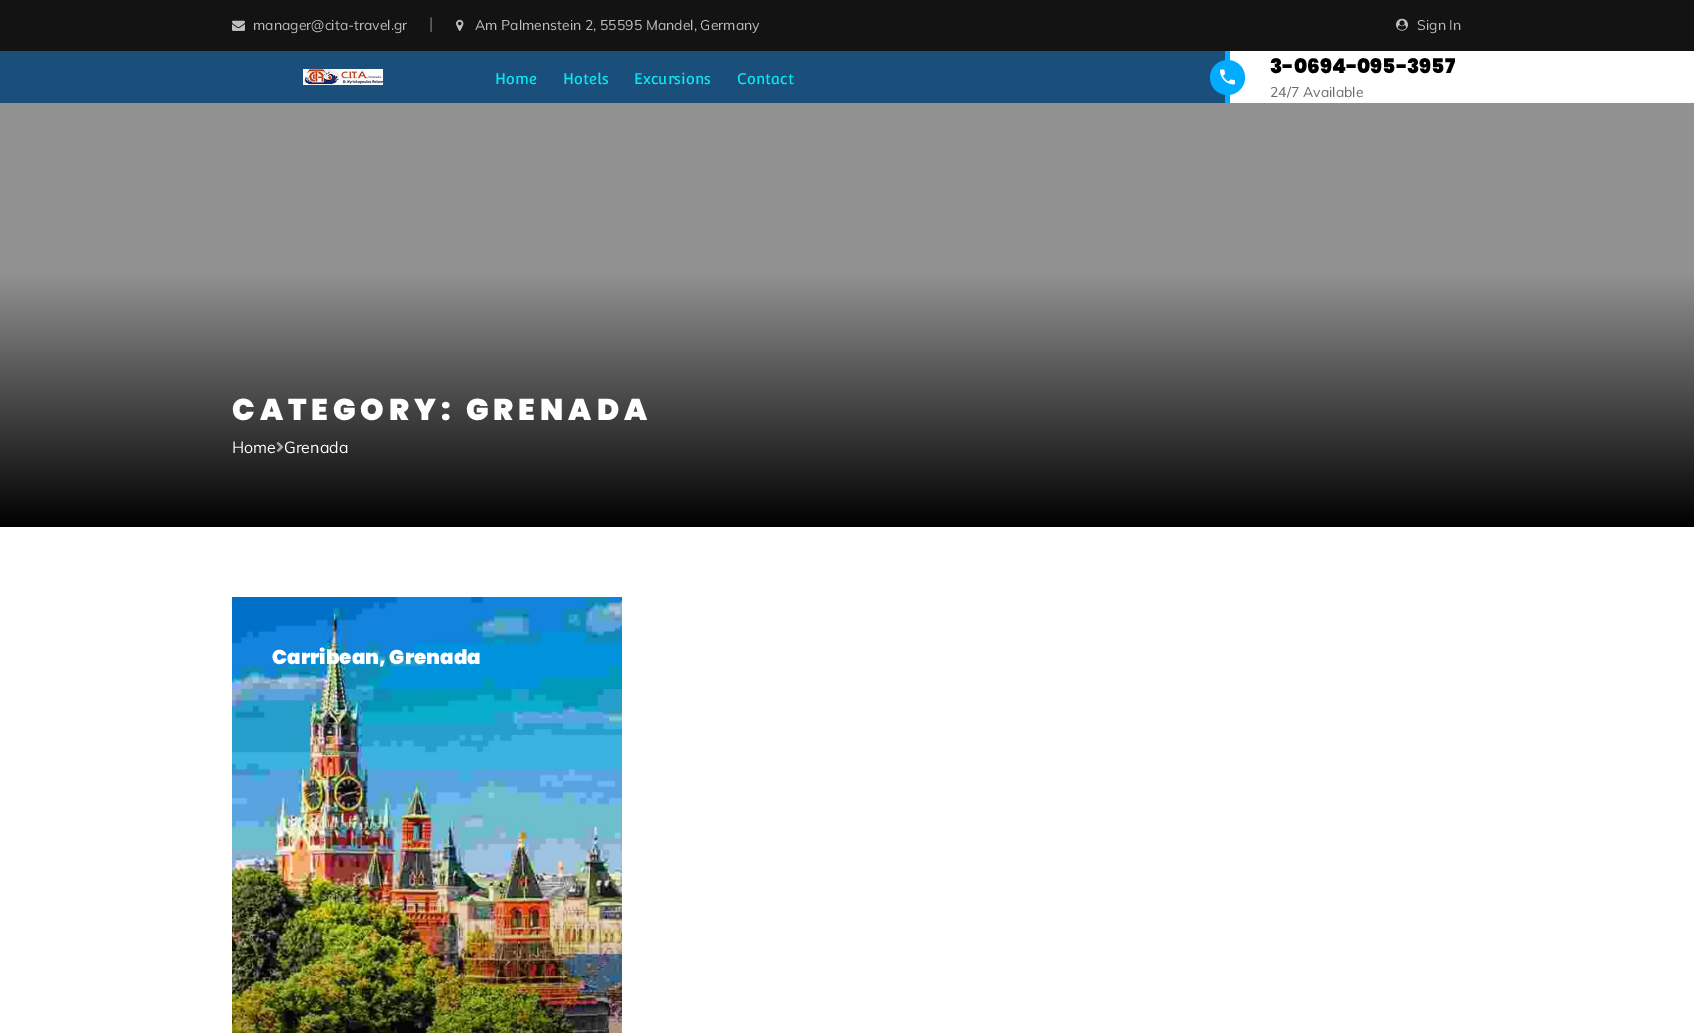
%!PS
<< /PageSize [1694 1033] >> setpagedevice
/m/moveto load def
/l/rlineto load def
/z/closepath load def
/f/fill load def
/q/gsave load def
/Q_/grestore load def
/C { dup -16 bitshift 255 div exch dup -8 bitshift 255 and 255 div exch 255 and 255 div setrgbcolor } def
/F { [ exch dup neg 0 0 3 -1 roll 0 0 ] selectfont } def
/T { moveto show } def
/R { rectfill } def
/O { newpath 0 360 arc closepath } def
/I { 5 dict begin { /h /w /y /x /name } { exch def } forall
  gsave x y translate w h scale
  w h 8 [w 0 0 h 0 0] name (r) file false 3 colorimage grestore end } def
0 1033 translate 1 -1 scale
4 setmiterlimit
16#FFFFFF C
0 0 1694 1033 R
16#131313 C
0 0 1694 51 R
(1.rgb) 232 20 13 11 I
/Muli-Regular 14 F
16#BFBFBF C
(manager@cita-travel.gr) 253 30 T
/Muli-Regular 16 F
16#777777 C
(|) 429 29 T
(2.rgb) 456 19 8 12 I
/Muli-Regular 14 F
16#BFBFBF C
(Am Palmenstein 2, 55595 Mandel, Germany) 475 30 T
(3.rgb) 1396 18 12 13 I
(Sign In) 1417 30 T
16#1A4E7B C
0 51 1225 52 R
16#01ABFF C
1225 51 5 52 R
1227.5 77.5 17.5 O f
(4.rgb) 1220 69 15 16 I
/Poppins-Black 20 F
16#000000 C
(3-0694-095-3957) 1270 73 T
/Muli-Regular 14 F
16#6B6B6B C
(24/7 Available) 1270 97 T
(5.rgb) 303 69 80 16 I
/Convergence-Regular 15 F
16#08E8F2 C
(Home) 495 84 T
(Hotels) 563 84 T
(Excursions) 634 84 T
(Contact) 737 84 T
q 0 103 m 1694 0 l 0 424 l -1694 0 l z clip newpath
<< /ShadingType 2 /ColorSpace /DeviceRGB /Coords [847 527 847 103] /Extend [true true] /Function << /FunctionType 3 /Domain [0 1] /Functions [<< /FunctionType 2 /Domain [0 1] /C0 [0 0 0] /C1 [.569 .569 .569] /N 1 >> << /FunctionType 2 /Domain [0 1] /C0 [.569 .569 .569] /C1 [.569 .569 .569] /N 1 >>] /Bounds [.6] /Encode [0 1 0 1] >> >> shfill Q_
/Poppins-Black 30 F
16#FFFFFF C
232 420 m 5 0 (CATEGORY: GRENADA) ashow
/Muli-Regular 16 F
(Home) 232 453 T
(6.rgb) 276 442 8 10 I
(Grenada) 284 453 T
(7.rgb) 232 597 390 436 I
/Poppins-Black 20 F
(Carribean, Grenada) 272 664 T
showpage
